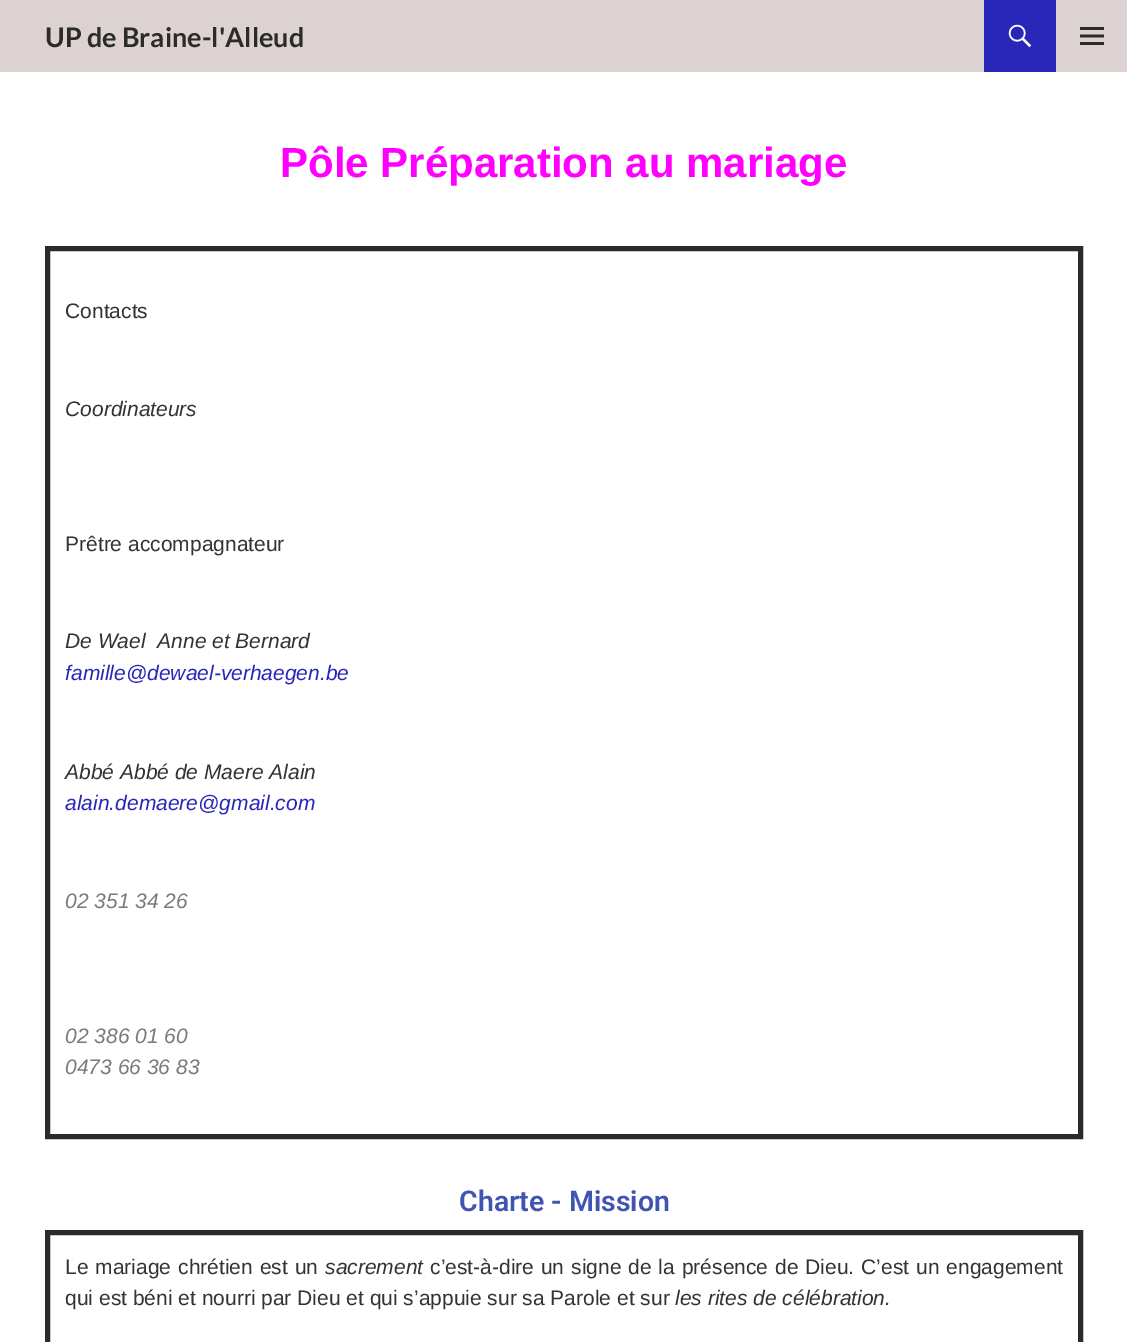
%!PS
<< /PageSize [1127 1342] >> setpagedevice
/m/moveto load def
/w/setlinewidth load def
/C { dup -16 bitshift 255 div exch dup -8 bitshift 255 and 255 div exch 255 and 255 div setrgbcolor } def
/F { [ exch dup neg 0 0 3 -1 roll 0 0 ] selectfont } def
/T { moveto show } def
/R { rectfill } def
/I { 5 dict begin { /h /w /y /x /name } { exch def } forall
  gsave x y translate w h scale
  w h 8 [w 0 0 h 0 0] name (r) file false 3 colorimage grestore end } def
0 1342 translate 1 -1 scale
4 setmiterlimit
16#FFFFFF C
0 0 1127 1342 R
16#DDD2D2 C
0 0 1127 72 R
/Lato-Bold 27 F
16#2B2B2B C
(UP de Braine-l'Alleud) 45 47 T
16#2927BA C
984 0 72 72 R
(1.rgb) 1008 24 24 24 I
(2.rgb) 1080 27 24 18 I
/LiberationSans-Bold 42 F
16#FF00FF C
(Pôle Préparation au mariage) 280 177 T
16#2B2B2B C
5 w
47.5 248.5 1033 888 rectstroke
/LiberationSans-Regular 21 F
16#333333 C
(Contacts) 65 318 T
/LiberationSans-Italic 21 F
(Coordinateurs) 65 416 T
/LiberationSans-Regular 21 F
(Prêtre accompagnateur) 65 551 T
/LiberationSans-Italic 21 F
(De Wael  Anne et Bernard) 65 648 T
16#2927BA C
(famille@dewael-verhaegen.be) 65 680 T
16#333333 C
(Abbé Abbé de Maere Alain) 65 779 T
16#2927BA C
(alain.demaere@gmail.com) 65 810 T
16#7A7A7A C
(02 351 34 26) 65 908 T
(02 386 01 60) 65 1043 T
(0473 66 36 83) 65 1074 T
/Roboto-SemiBold 28.5 F
16#4054B2 C
(Charte - Mission) 459 1211 T
16#2B2B2B C
47.5 1232.5 1033 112 rectstroke
/LiberationSans-Regular 21 F
16#333333 C
65 1274 m 1.1 0 32 (Le mariage chrétien est un) widthshow
/LiberationSans-Italic 21 F
(sacrement) 325 1274 T
/LiberationSans-Regular 21 F
430 1274 m 1.1 0 32 (c’est-à-dire un signe de la présence de Dieu. C’est un engagement) widthshow
(qui est béni et nourri par Dieu et qui s’appuie sur sa Parole et sur) 65 1305 T
/LiberationSans-Italic 21 F
(les rites de célébration.) 675 1305 T
showpage
